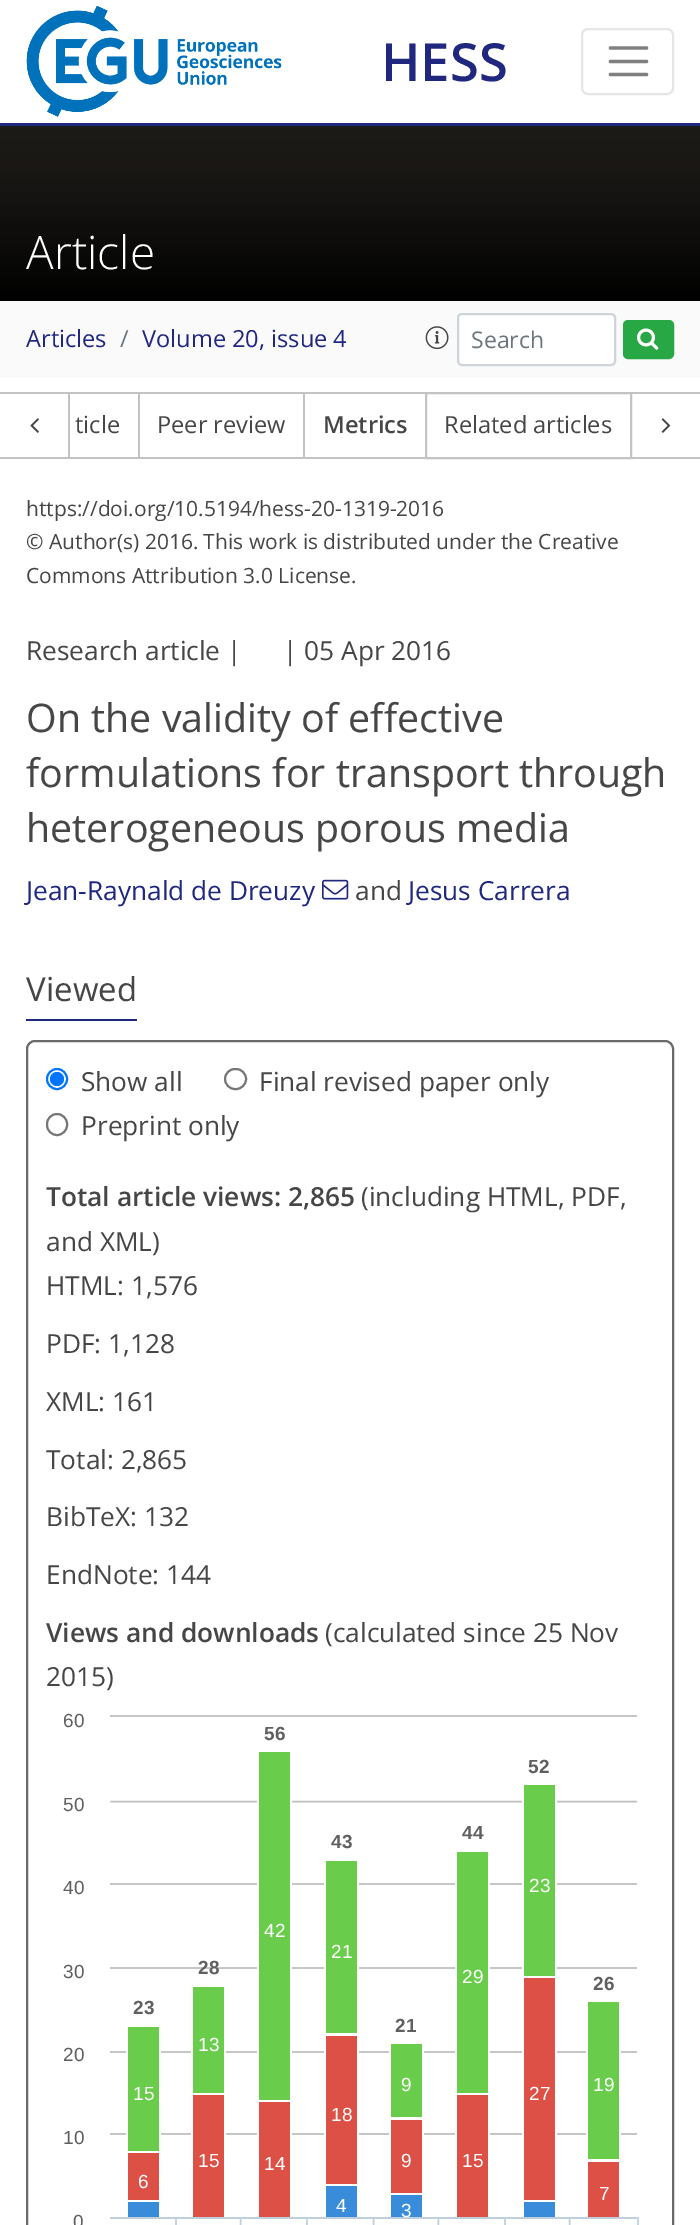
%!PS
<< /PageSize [700 2225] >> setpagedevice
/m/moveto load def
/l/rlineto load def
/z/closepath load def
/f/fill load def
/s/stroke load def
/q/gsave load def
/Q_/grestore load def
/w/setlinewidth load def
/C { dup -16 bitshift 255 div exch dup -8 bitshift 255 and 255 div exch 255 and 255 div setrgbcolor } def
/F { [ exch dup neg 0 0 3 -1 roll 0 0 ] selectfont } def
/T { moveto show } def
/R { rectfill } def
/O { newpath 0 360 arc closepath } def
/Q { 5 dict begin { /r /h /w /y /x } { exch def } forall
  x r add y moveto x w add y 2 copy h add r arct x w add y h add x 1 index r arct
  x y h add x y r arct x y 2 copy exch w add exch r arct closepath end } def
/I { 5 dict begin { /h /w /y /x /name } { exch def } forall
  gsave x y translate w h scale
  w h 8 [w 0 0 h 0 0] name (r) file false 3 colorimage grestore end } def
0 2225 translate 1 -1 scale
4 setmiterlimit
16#FFFFFF C
0 0 700 2225 R
(1.rgb) 26 6 256 111 I
/OpenSans-SemiBold 52.5 F
16#1F277F C
(HESS) 381 81 T
16#E6E6E6 C
2 w
582 29 91 65 6 Q s
16#808080 C
3.3 w
1 setlinecap
610.5 48 m 36 0 l 610.5 61.5 m 36 0 l 610.5 74.5 m 36 0 l s
16#1F277F C
0 123 700 3 R
q 0 126 m 700 0 l 0 175 l -700 0 l z clip newpath
<< /ShadingType 2 /ColorSpace /DeviceRGB /Coords [350 301 350 126] /Extend [true true] /Function << /FunctionType 3 /Domain [0 1] /Functions [<< /FunctionType 2 /Domain [0 1] /C0 [0 0 0] /C1 [.027 .027 .024] /N 1 >> << /FunctionType 2 /Domain [0 1] /C0 [.027 .027 .024] /C1 [.051 .047 .043] /N 1 >> << /FunctionType 2 /Domain [0 1] /C0 [.051 .047 .043] /C1 [.067 .063 .055] /N 1 >> << /FunctionType 2 /Domain [0 1] /C0 [.067 .063 .055] /C1 [.078 .075 .067] /N 1 >> << /FunctionType 2 /Domain [0 1] /C0 [.078 .075 .067] /C1 [.09 .082 .075] /N 1 >> << /FunctionType 2 /Domain [0 1] /C0 [.09 .082 .075] /C1 [.098 .09 .078] /N 1 >> << /FunctionType 2 /Domain [0 1] /C0 [.098 .09 .078] /C1 [.102 .094 .082] /N 1 >> << /FunctionType 2 /Domain [0 1] /C0 [.102 .094 .082] /C1 [.106 .098 .086] /N 1 >> << /FunctionType 2 /Domain [0 1] /C0 [.106 .098 .086] /C1 [.106 .098 .09] /N 1 >> << /FunctionType 2 /Domain [0 1] /C0 [.106 .098 .09] /C1 [.11 .102 .09] /N 1 >> << /FunctionType 2 /Domain [0 1] /C0 [.11 .102 .09] /C1 [.11 .102 .09] /N 1 >>] /Bounds [.19 .34 .47 .56 .65 .73 .8 .86 .91 .95] /Encode [0 1 0 1 0 1 0 1 0 1 0 1 0 1 0 1 0 1 0 1 0 1] >> >> shfill Q_
/OpenSans-Light 46 F
16#FFFFFF C
(Article) 26 269 T
16#FAFAFA C
0 301 700 77 R
/OpenSans-Regular 23.6 F
16#1F277F C
(Articles) 26 347 T
16#6C757D C
(/) 120 347 T
16#1F277F C
(Volume 20, issue 4) 142 347 T
(2.rgb) 425 326 24 24 I
16#FFFFFF C
458 314 157 51 4 Q q f Q_
16#CED4DA C
2 w
0 setlinecap
s
/OpenSans-Regular 23 F
16#6C757D C
(Search) 471 348 T
16#28A745 C
624 321 49 37 4 Q q f Q_
s
(3.rgb) 637 328 22 22 I
16#C3C3C3 C
0 392 425 2 R
68 457 357 2 R
68 392 2 67 R
0 457 70 2 R
(4.rgb) 30 418 9 15 I
/OpenSans-Regular 23.6 F
16#464646 C
(ticle) 75 433 T
16#C3C3C3 C
138 392 2 67 R
16#464646 C
(Peer review) 157 433 T
16#C3C3C3 C
303 392 2 67 R
/OpenSans-SemiBold 23.6 F
16#464646 C
(Metrics) 323 433 T
16#C3C3C3 C
426 393 205 65 rectstroke
/OpenSans-Regular 23.6 F
16#464646 C
(Related articles) 444 433 T
16#C3C3C3 C
630 392 70 2 R
630 457 70 2 R
(5.rgb) 661 418 10 15 I
/OpenSans-Regular 21 F
16#464646 C
(https://doi.org/10.5194/hess-20-1319-2016) 26 516 T
(© Author\(s\) 2016. This work is distributed under the Creative) 26 549 T
(Commons Attribution 3.0 License.) 26 583 T
/OpenSans-Regular 26.25 F
(Research article |) 26 660 T
(| 05 Apr 2016) 283 660 T
/OpenSans-Regular 39.4 F
(On the validity of effective) 26 732 T
(formulations for transport through) 26 787 T
(heterogeneous porous media) 26 842 T
/OpenSans-Regular 26.25 F
16#1F277F C
(Jean-Raynald de Dreuzy) 26 900 T
(6.rgb) 322 879 27 21 I
16#464646 C
(and) 355 900 T
16#1F277F C
(Jesus Carrera) 408 900 T
26 1019 111 2 R
/OpenSans-Regular 33 F
16#464646 C
(Viewed) 26 1001 T
16#6A6A6A C
27 1041 646 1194 8 Q s
16#0075FF C
57 1079 10 O s
57 1079 7 O f
/OpenSans-Regular 26.25 F
16#464646 C
(Show all) 81 1091 T
16#767676 C
225 1069 21 20 10 Q s
16#464646 C
(Final revised paper only) 259 1091 T
16#767676 C
47 1114 20 21 10 Q s
16#464646 C
(Preprint only) 81 1135 T
/OpenSans-SemiBold 26.25 F
(Total article views: 2,865) 46 1206 T
/OpenSans-Regular 26.25 F
(\(including HTML, PDF,) 361 1206 T
(and XML\)) 46 1251 T
(HTML: 1,576) 46 1295 T
(PDF: 1,128) 46 1353 T
(XML: 161) 46 1411 T
(Total: 2,865) 46 1469 T
(BibTeX: 132) 46 1526 T
(EndNote: 144) 46 1584 T
/OpenSans-SemiBold 26.25 F
(Views and downloads) 46 1642 T
/OpenSans-Regular 26.25 F
(\(calculated since 25 Nov) 325 1642 T
(2015\)) 46 1686 T
/LiberationSans-Regular 19 F
16#606060 C
(60) 63 1727 T
(7.rgb) 110 1715 529 510 I
/LiberationSans-Bold 19 F
(56) 264 1740 T
(52) 528 1773 T
/LiberationSans-Regular 19 F
(50) 63 1811 T
/LiberationSans-Bold 19 F
(44) 462 1839 T
(43) 331 1848 T
/LiberationSans-Regular 19 F
(40) 63 1894 T
16#FFFFFF C
(23) 529 1892 T
(42) 264 1937 T
(21) 331 1958 T
16#606060 C
(30) 63 1978 T
/LiberationSans-Bold 19 F
(28) 198 1974 T
/LiberationSans-Regular 19 F
16#FFFFFF C
(29) 462 1983 T
/LiberationSans-Bold 19 F
16#606060 C
(26) 593 1990 T
(23) 133 2014 T
(21) 395 2032 T
/LiberationSans-Regular 19 F
16#FFFFFF C
(13) 198 2051 T
16#606060 C
(20) 63 2061 T
16#FFFFFF C
(9) 401 2091 T
(19) 593 2091 T
(15) 133 2100 T
(27) 529 2100 T
(18) 331 2121 T
16#606060 C
(10) 63 2144 T
16#FFFFFF C
(15) 198 2167 T
(14) 264 2170 T
(9) 401 2167 T
(15) 462 2167 T
(6) 138 2188 T
(7) 599 2200 T
(4) 336 2212 T
(3) 401 2217 T
16#606060 C
(0) 73 2228 T
showpage
